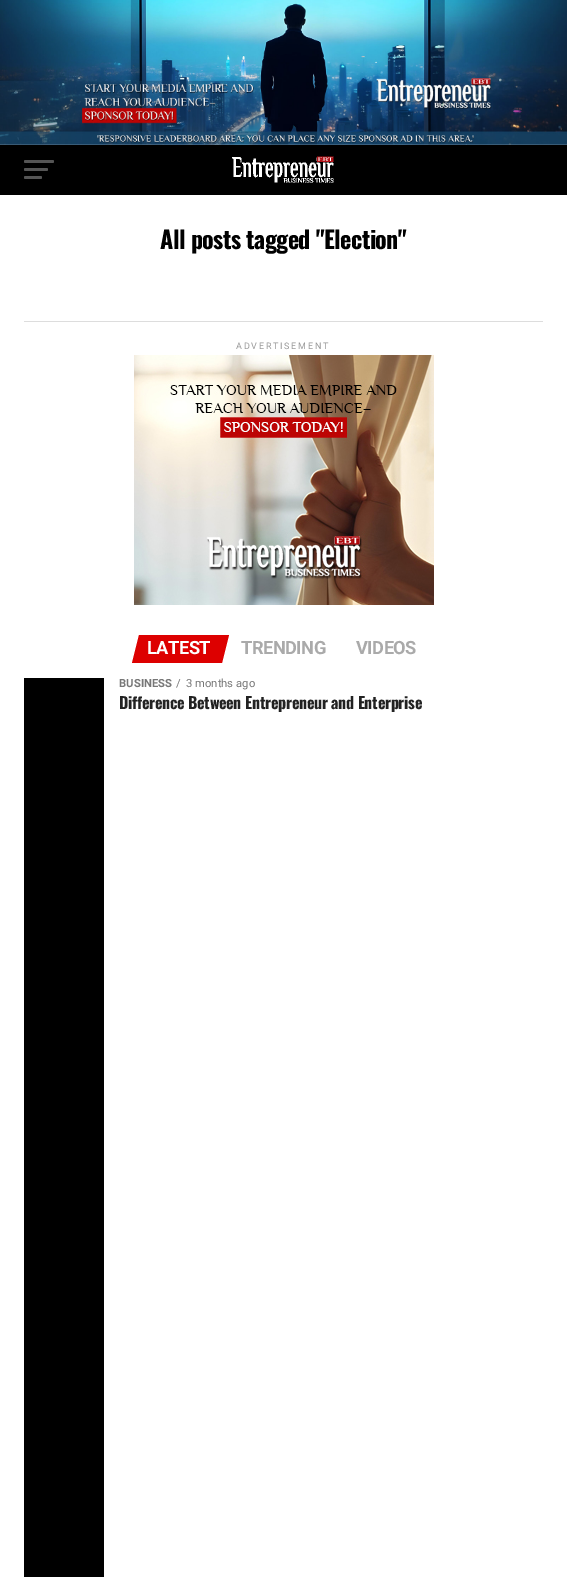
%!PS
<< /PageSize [567 1577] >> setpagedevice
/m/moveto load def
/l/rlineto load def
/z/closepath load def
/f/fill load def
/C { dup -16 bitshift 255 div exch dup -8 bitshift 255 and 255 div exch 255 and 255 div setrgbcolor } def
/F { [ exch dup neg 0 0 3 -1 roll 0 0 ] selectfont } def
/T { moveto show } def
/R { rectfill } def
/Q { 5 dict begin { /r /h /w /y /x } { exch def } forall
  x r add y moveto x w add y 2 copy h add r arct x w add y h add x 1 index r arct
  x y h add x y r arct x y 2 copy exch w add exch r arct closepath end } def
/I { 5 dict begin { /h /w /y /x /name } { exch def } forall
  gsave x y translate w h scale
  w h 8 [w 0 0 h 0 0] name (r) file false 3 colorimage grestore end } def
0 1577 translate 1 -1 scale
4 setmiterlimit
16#FFFFFF C
0 0 567 1577 R
(1.rgb) 0 0 567 145 I
16#000000 C
0 145 567 50 R
16#555555 C
24 160 30 3 1.5 Q f
24 168 24 3 1.5 Q f
24 176 18 3 1.5 Q f
(2.rgb) 232 156 102 27 I
/Oswald-Bold 24 F
16#000000 C
160 249 m -.5 0 (All posts tagged "Election") ashow
16#DDDDDD C
24 321 519 1 R
/Roboto-Regular 9 F
16#999999 C
236 349 m 1.75 0 (ADVERTISEMENT) ashow
(3.rgb) 134 355 300 250 I
16#DD0000 C
139 635 m 90 0 l -7 28 l -90 0 l z f
/Roboto-Bold 18.25 F
16#FFFFFF C
147 654 m -.5 0 (LATEST) ashow
16#AAAAAA C
241 654 m -.5 0 (TRENDING) ashow
356 654 m -.5 0 (VIDEOS) ashow
16#000000 C
24 678 80 899 R
/Roboto-Bold 11.25 F
16#777777 C
(BUSINESS) 119 687 T
/Roboto-Regular 11.25 F
(/) 176 687 T
(3 months ago) 186 687 T
/Oswald-Bold 16 F
16#222222 C
119 709 m -.3 0 (Difference Between Entrepreneur and Enterprise) ashow
showpage
